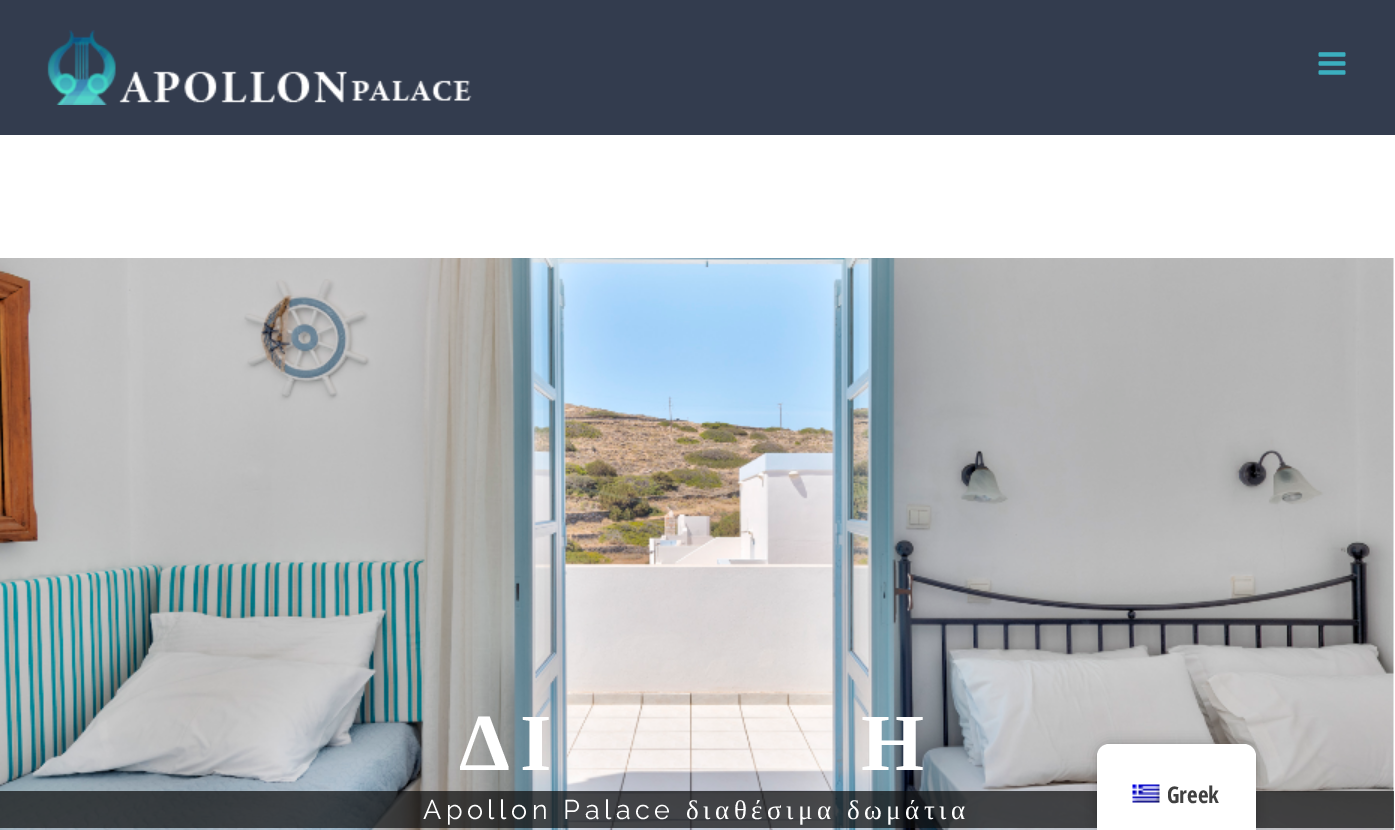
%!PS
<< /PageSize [1395 830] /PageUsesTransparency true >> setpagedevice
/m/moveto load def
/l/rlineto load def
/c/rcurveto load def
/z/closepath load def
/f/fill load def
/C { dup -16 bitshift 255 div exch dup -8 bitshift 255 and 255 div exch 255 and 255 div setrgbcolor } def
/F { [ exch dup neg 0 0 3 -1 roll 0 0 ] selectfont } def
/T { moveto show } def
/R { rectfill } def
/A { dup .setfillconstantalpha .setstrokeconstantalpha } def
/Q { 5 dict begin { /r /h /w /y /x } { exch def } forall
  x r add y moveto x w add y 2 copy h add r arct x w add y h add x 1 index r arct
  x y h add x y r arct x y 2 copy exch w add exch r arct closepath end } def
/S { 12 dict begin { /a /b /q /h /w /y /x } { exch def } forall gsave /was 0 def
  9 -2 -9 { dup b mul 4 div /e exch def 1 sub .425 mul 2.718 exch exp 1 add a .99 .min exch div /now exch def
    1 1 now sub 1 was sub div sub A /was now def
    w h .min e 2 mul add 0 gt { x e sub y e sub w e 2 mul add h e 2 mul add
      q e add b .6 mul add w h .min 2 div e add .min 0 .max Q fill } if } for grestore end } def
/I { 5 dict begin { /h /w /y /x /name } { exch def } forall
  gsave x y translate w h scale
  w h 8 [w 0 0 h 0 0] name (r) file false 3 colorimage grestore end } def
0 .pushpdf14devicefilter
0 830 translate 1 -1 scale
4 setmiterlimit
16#FFFFFF C
0 0 1395 830 R
16#333C4E C
0 0 1395 135 R
(1.rgb) 47 30 425 75 I
(2.rgb) 1318 52 28 23 I
(3.rgb) 0 258 1394 572 I
/LiberationSerif-Bold 81 F
16#FFFFFF C
459 770 m 10 0 (ΔΙ) ashow
861 770 m 10 0 (Η) ashow
0.71 A
16#0C0C0C C
0 791 1394 37 R
/Raleway-Regular 27 F
1 A
16#FFFFFF C
423 819 m 4.5 0 (Apollon Palace) ashow
/LiberationSerif-Regular 27 F
686 819 m 4.5 0 (διαθέσιμα δωμάτια) ashow
16#000000 C
1097 744 159 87 12 6 .25 S
16#FFFFFF C
1109 744 m 135 0 l 6.5 0 12 5.5 12 12 c 0 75 l -159 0 l 0 -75 l 0 -6.5 5.5 -12 12 -12 c z f
(4.rgb) 1132 784 28 19 I
/OpenSansCondensed-Bold 23 F
16#404040 C
(Greek) 1167 803 T
.poppdf14devicefilter showpage
